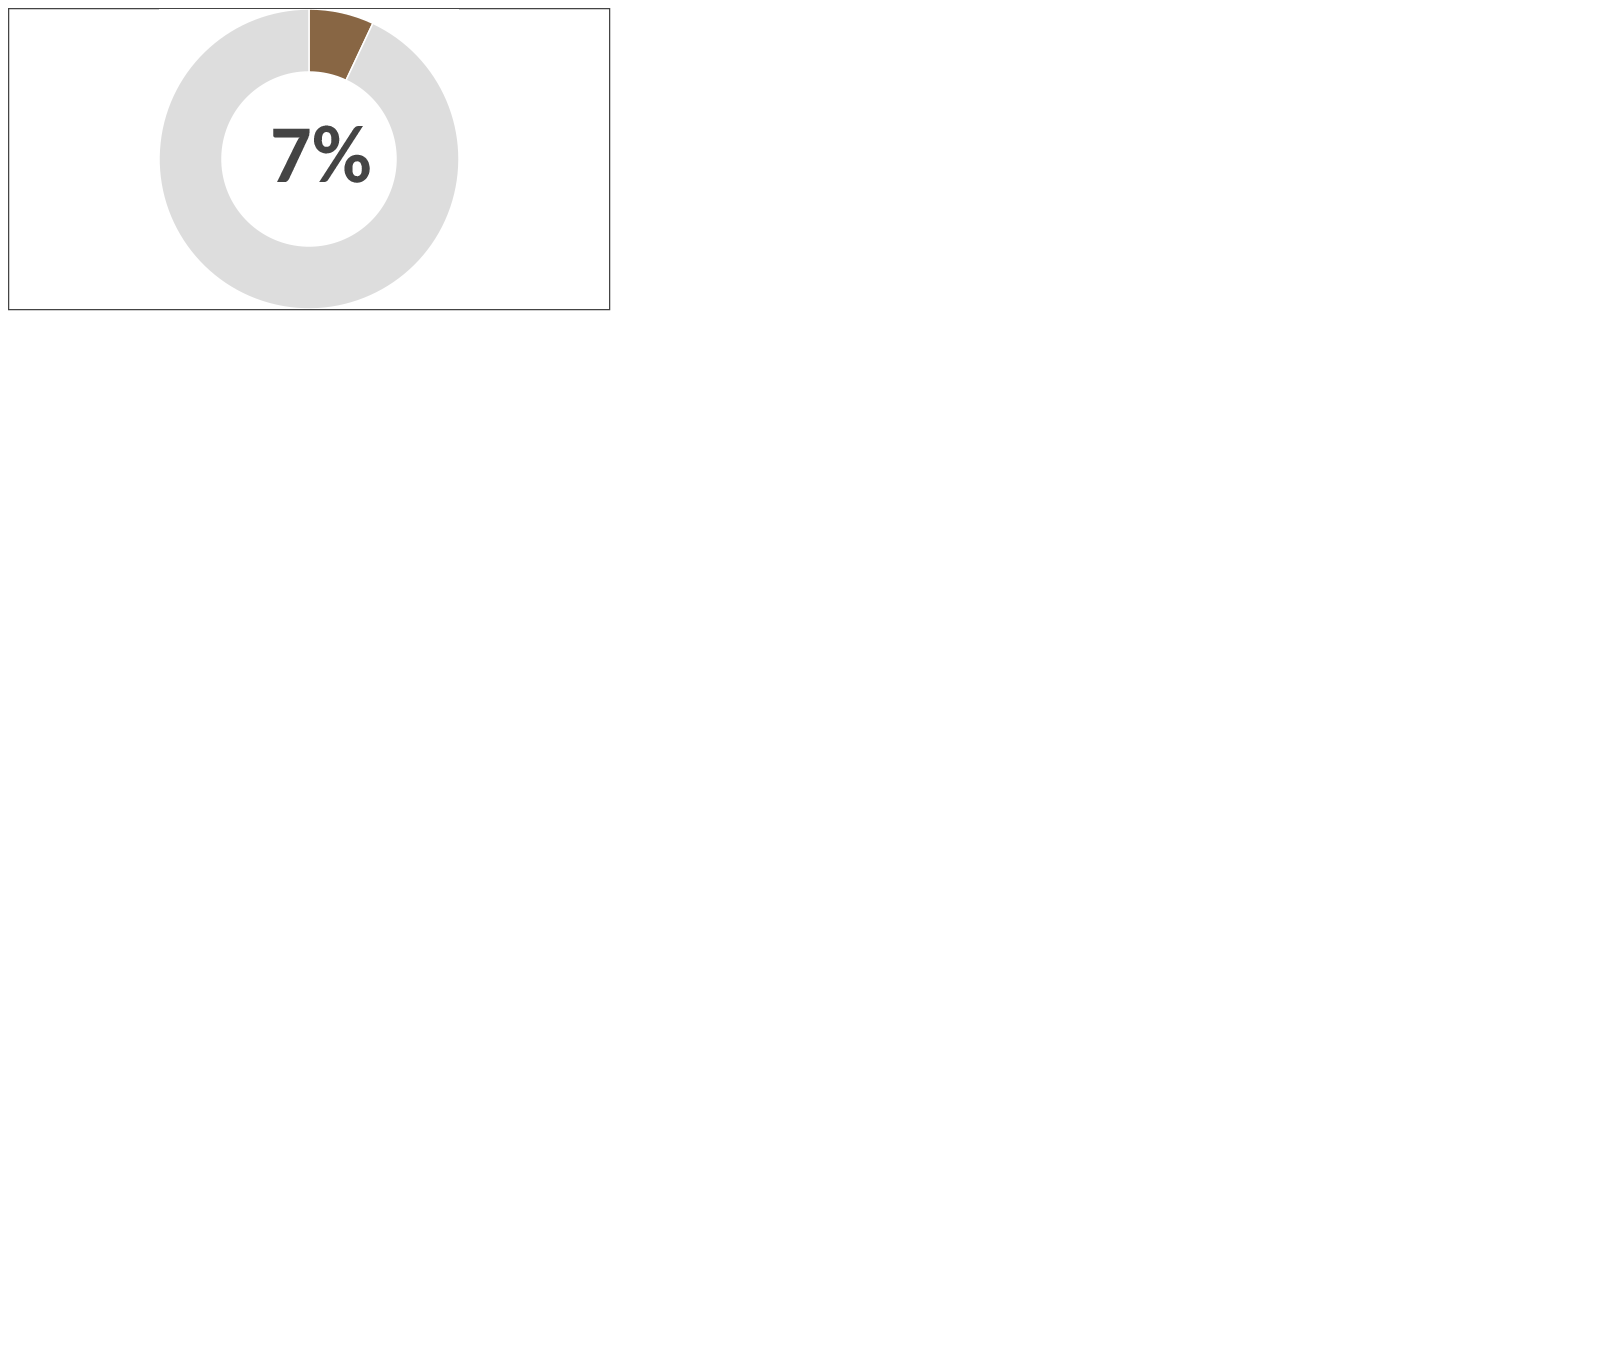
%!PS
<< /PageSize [1612 1358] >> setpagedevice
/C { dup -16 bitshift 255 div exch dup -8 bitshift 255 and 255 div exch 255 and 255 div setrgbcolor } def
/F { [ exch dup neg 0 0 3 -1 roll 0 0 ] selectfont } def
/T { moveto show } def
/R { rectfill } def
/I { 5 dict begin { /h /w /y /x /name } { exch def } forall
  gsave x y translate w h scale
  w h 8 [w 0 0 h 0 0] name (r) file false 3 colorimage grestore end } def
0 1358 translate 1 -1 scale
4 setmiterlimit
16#FFFFFF C
0 0 1612 1358 R
16#444444 C
8.5 8.5 601 301 rectstroke
(1.rgb) 159 9 300 300 I
/Carlito-Bold 82 F
(7%) 270 182 T
showpage
